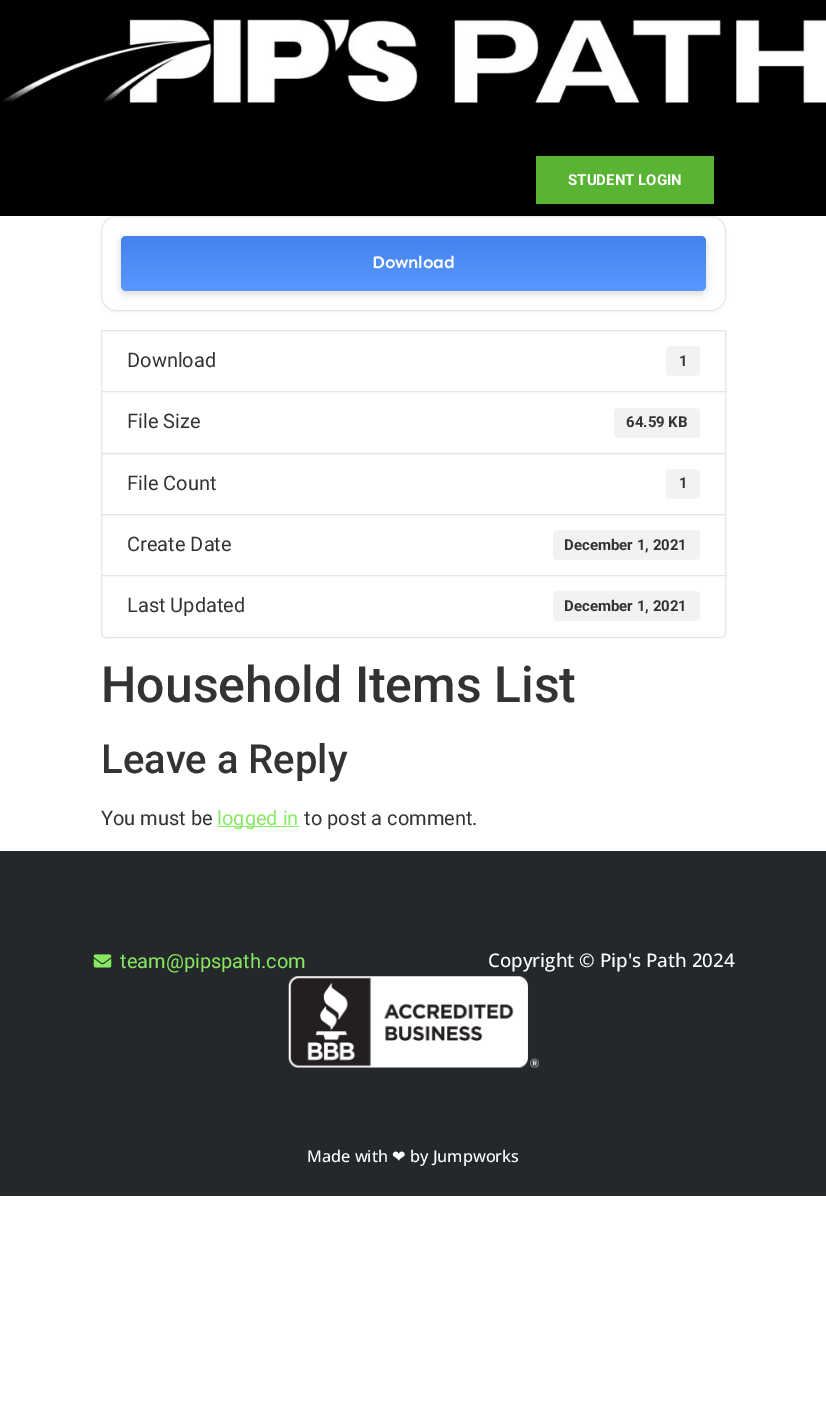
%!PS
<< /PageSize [826 1417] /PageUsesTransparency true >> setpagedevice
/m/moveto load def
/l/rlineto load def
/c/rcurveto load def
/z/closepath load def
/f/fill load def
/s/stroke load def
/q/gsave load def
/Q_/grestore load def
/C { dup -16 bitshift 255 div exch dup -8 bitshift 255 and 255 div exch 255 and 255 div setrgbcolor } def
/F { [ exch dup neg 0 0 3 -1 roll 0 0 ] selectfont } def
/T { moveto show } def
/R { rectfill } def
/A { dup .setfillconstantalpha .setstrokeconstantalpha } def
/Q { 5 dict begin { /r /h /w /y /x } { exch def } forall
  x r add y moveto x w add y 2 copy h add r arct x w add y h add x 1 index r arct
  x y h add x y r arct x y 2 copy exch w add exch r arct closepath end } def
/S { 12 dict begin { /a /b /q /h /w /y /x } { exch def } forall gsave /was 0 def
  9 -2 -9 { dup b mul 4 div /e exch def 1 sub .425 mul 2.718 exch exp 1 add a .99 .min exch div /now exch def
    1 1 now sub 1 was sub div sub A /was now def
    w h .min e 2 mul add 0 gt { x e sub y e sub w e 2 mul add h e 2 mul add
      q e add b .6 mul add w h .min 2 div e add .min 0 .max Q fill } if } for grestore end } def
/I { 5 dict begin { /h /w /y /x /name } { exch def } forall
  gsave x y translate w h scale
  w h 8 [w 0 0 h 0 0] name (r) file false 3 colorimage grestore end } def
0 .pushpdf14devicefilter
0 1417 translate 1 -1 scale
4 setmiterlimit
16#FFFFFF C
0 0 826 1417 R
16#000000 C
0 0 826 216 R
(1.rgb) 2 19 824 84 I
16#59B434 C
536 156 178 48 1 Q f
/Roboto-Bold 15 F
16#FFFFFF C
(STUDENT LOGIN) 568 185 T
16#000000 C
101 218 625 95 15 2 .04 S
16#FFFFFF C
101.5 216.5 624 94 14.5 Q q f Q_
16#E2E8F0 C
s
16#000000 C
121 239 585 55 5 4 .15 S
16#4A8EFF C
121 236 585 55 5 Q f
0.08 A
q 121 236 585 55 5 Q clip newpath
<< /ShadingType 2 /ColorSpace /DeviceRGB /Coords [414 236 414 291] /Extend [true true] /Function << /FunctionType 2 /Domain [0 1] /C0 [0 0 0] /C1 [1 1 1] /N 1 >> >> shfill Q_
/Sen-SemiBold 17.5 F
1 A
16#FFFFFF C
372 268 m -.25 0 (Download) ashow
16#E5E5E5 C
101.5 330.5 624 62 rectstroke
/Roboto-Regular 20 F
16#333333 C
(Download) 127 367 T
16#F2F2F2 C
666 346 34 30 4 Q f
/Roboto-Bold 15 F
16#333333 C
(1) 679 366 T
16#FFFFFF C
102 392 623 1 R
16#E5E5E5 C
101.5 391.5 624 62 rectstroke
/Roboto-Regular 20 F
16#333333 C
(File Size) 127 428 T
16#F2F2F2 C
614 408 86 30 4 Q f
/Roboto-Bold 15 F
16#333333 C
(64.59 KB) 626 427 T
16#E5E5E5 C
101.5 453.5 624 61 rectstroke
/Roboto-Regular 20 F
16#333333 C
(File Count) 127 490 T
16#F2F2F2 C
666 469 34 30 4 Q f
/Roboto-Bold 15 F
16#333333 C
(1) 679 488 T
16#E5E5E5 C
101.5 514.5 624 61 rectstroke
/Roboto-Regular 20 F
16#333333 C
(Create Date) 127 551 T
16#F2F2F2 C
553 530 147 30 4 Q f
/Roboto-Bold 15 F
16#333333 C
(December 1, 2021) 564 550 T
16#FFFFFF C
101.5 575.5 m 624 0 l 0 57.5 l 0 2.5 -2 4.5 -4.5 4.5 c -615 0 l -2.5 0 -4.5 -2 -4.5 -4.5 c z q f Q_
16#E5E5E5 C
s
/Roboto-Regular 20 F
16#333333 C
(Last Updated) 127 612 T
16#F2F2F2 C
553 591 147 30 4 Q f
/Roboto-Bold 15 F
16#333333 C
(December 1, 2021) 564 611 T
/Roboto-Medium 50 F
(Household Items List) 101 702 T
/Roboto-Medium 40 F
(Leave a Reply) 101 773 T
/Roboto-Regular 20 F
(You must be) 101 825 T
16#87E960 C
218 826 81 1 R
(logged in) 217 825 T
16#333333 C
(to post a comment.) 304 825 T
16#25282B C
0 851 826 345 R
(2.rgb) 93 954 19 14 I
16#87E960 C
(team@pipspath.com) 120 968 T
/OpenSans-Medium 18.75 F
16#FFFFFF C
(Copyright © Pip's Path 2024) 488 967 T
(3.rgb) 288 976 251 92 I
/OpenSans-Medium 16.25 F
(Made with) 307 1162 T
/DejaVuSans-Regular 16.25 F
(❤) 392 1162 T
/OpenSans-Medium 16.25 F
(by Jumpworks) 410 1162 T
.poppdf14devicefilter showpage
